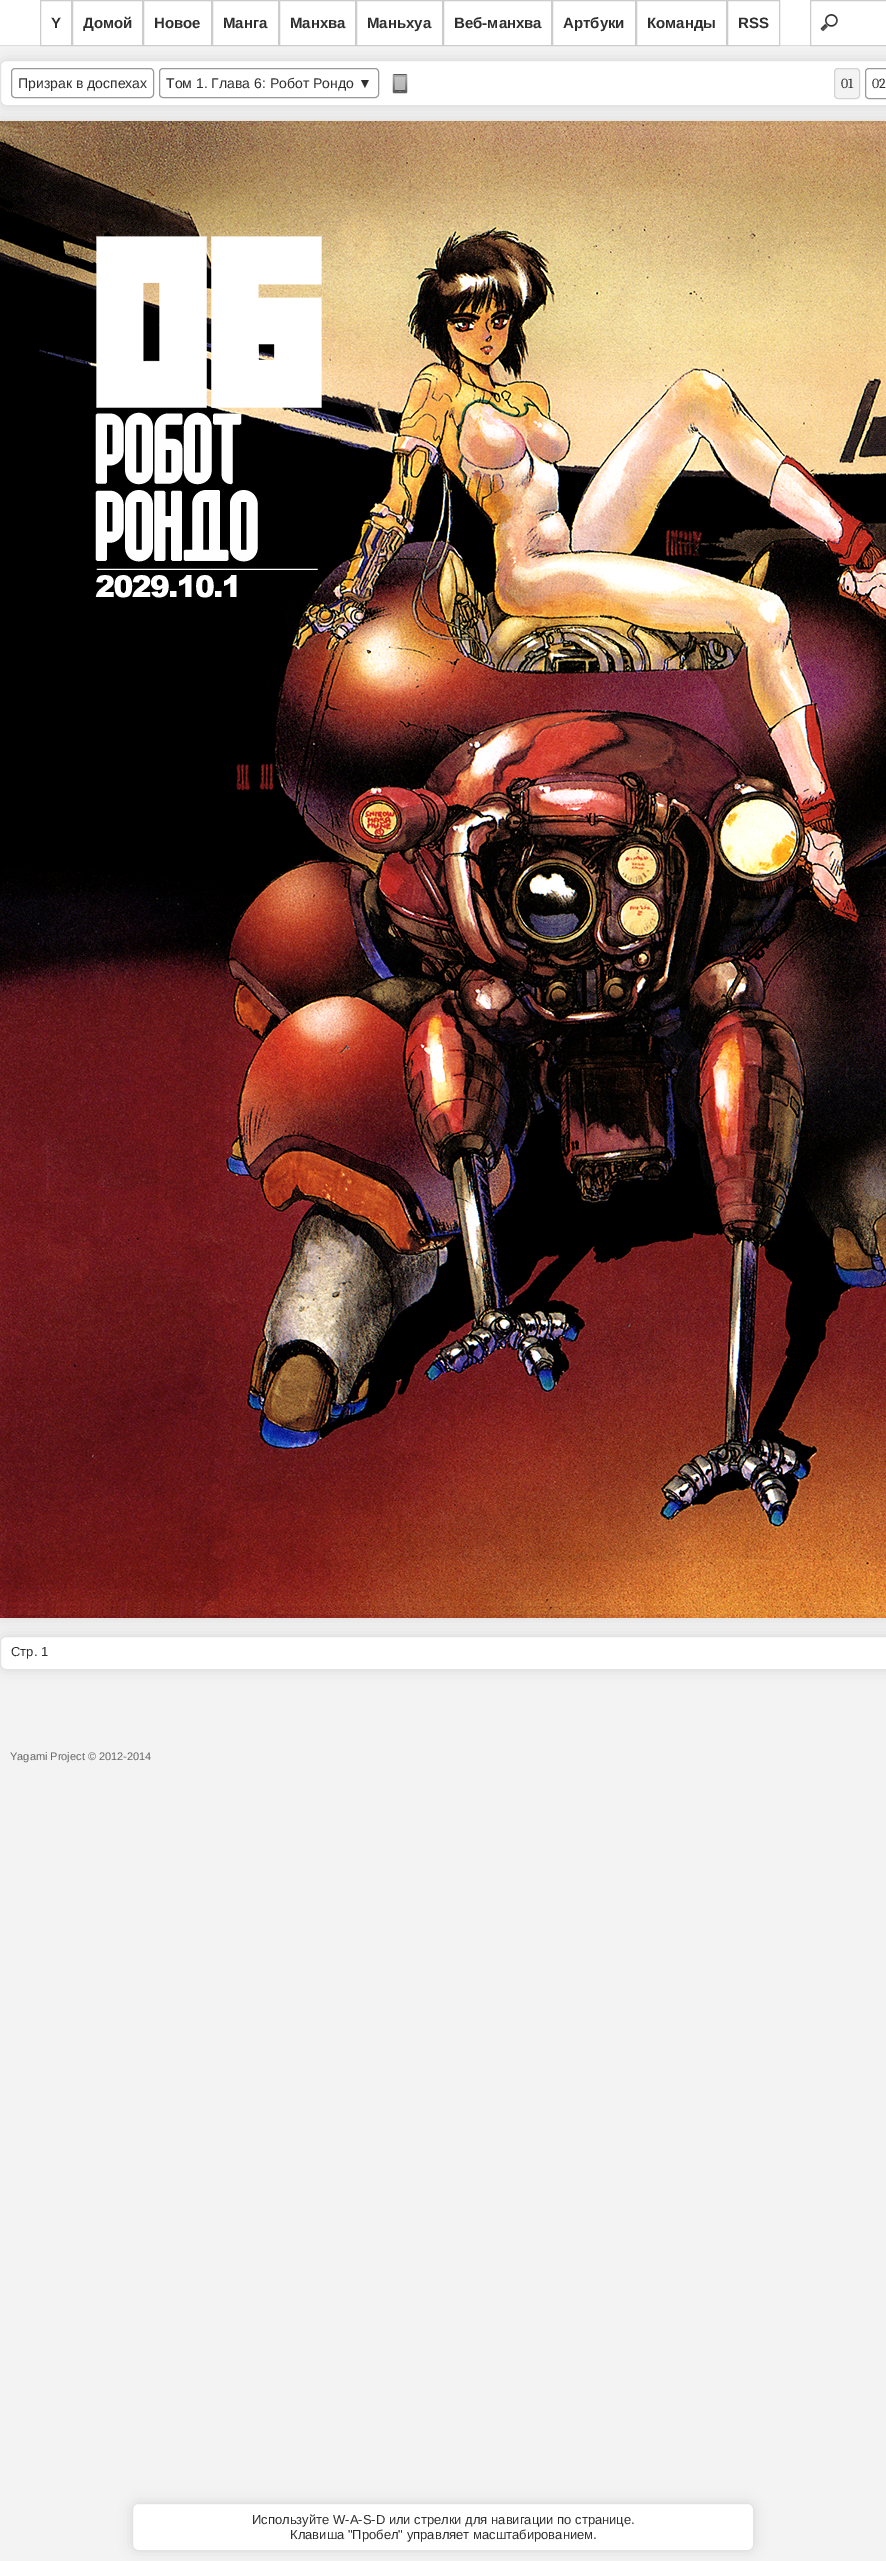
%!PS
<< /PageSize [886 2561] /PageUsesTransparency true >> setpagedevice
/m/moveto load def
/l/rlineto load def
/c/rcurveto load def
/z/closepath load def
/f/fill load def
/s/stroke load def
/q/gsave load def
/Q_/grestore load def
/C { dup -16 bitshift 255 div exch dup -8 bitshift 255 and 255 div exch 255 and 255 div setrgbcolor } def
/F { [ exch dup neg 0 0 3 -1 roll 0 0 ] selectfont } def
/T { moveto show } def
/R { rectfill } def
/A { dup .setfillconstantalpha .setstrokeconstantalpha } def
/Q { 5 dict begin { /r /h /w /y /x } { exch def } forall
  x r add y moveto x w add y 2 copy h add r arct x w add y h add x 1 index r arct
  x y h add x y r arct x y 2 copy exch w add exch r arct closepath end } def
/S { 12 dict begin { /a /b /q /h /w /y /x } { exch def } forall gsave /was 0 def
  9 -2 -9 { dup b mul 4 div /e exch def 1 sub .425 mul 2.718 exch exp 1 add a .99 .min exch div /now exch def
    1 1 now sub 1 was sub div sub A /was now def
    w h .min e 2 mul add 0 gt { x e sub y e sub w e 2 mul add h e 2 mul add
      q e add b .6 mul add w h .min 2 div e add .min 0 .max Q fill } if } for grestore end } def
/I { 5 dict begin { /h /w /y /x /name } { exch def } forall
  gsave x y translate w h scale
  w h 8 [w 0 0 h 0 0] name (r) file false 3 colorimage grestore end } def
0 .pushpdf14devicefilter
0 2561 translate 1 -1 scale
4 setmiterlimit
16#F3F3F3 C
0 0 886 2561 R
q
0 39 m 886 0 l 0 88 l -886 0 l z 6 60 m 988 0 l 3.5 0 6 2.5 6 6 c 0 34 l 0 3.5 -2.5 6 -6 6 c -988 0 l -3.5 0 -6 -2.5 -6 -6 c 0 -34 l 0 -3.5 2.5 -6 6 -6 c z eoclip newpath
16#000000 C
0 60 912 46 6 6.5 .1 S
Q_
16#FFFFFF C
0 0 810 45 R
16#DDDDDD C
0 45 810 1 R
16#CCCCCC C
40.5 .5 31 45 rectstroke
/LiberationSans-Bold 15 F
16#2F2F2F C
(Y) 51 28 T
16#CCCCCC C
72.5 .5 70 45 rectstroke
16#2F2F2F C
(Домой) 83 28 T
16#CCCCCC C
143.5 .5 68 45 rectstroke
16#2F2F2F C
(Новое) 154 28 T
16#CCCCCC C
212.5 .5 66 45 rectstroke
16#2F2F2F C
(Манга) 223 28 T
16#CCCCCC C
279.5 .5 76 45 rectstroke
16#2F2F2F C
(Манхва) 290 28 T
16#CCCCCC C
356.5 .5 86 45 rectstroke
16#2F2F2F C
(Маньхуа) 367 28 T
16#CCCCCC C
443.5 .5 108 45 rectstroke
16#2F2F2F C
(Веб-манхва) 454 28 T
16#CCCCCC C
552.5 .5 83 45 rectstroke
16#2F2F2F C
(Артбуки) 563 28 T
16#CCCCCC C
636.5 .5 90 45 rectstroke
16#2F2F2F C
(Команды) 647 28 T
16#CCCCCC C
727.5 .5 52 45 rectstroke
16#2F2F2F C
(RSS) 738 28 T
16#FFFFFF C
811 1 75 44 R
(1.rgb) 820 14 18 18 I
16#CCCCCC C
810.5 .5 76 45 rectstroke
16#FFFFFF C
1 61 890 44 5 Q f
16#E3E3E3 C
.5 60.5 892 45 5.5 Q s
16#999999 C
11.5 68.5 142 29 3.5 Q s
/LiberationSans-Regular 14 F
16#2F2F2F C
(Призрак в доспехах) 18 88 T
16#999999 C
159.5 68.5 219 29 3.5 Q s
16#2F2F2F C
(Том 1. Глава 6: Робот Рондо) 166 88 T
(▼) 358 88 T
(2.rgb) 392 74 16 20 I
16#F3F3F3 C
834.5 68.5 25 30 3.5 Q q f Q_
16#D3D3D3 C
s
/Caladea-Regular 14 F
16#2F2F2F C
(01) 841 88 T
16#999999 C
865.5 68.5 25 30 3.5 Q s
16#2F2F2F C
(02) 872 88 T
q
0 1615 m 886 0 l 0 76 l -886 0 l z 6 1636 m 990 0 l 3.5 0 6 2.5 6 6 c 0 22 l 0 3.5 -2.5 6 -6 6 c -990 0 l -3.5 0 -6 -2.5 -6 -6 c 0 -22 l 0 -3.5 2.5 -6 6 -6 c z eoclip newpath
16#000000 C
0 1636 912 34 6 6.5 .1 S
Q_
16#FFFFFF C
1 1637 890 32 5 Q f
16#E3E3E3 C
.5 1636.5 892 33 5.5 Q s
16#000000 C
0 121 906 1497 0 6.5 .1 S
(3.rgb) 0 121 886 1497 I
/LiberationSans-Regular 13 F
16#2F2F2F C
(Стр. 1) 11 1656 T
/LiberationSans-Regular 11 F
16#666666 C
(Yagami Project © 2012-2014) 10 1760 T
16#000000 C
132 2503 622 48 6 6.5 .1 S
16#FFFFFF C
132.5 2503.5 621 47 5.5 Q q f Q_
16#E3E3E3 C
s
/LiberationSans-Regular 13 F
16#2F2F2F C
(Используйте W-A-S-D или стрелки для навигации по странице.) 252 2524 T
(Клавиша "Пробел" управляет масштабированием.) 290 2539 T
.poppdf14devicefilter showpage
